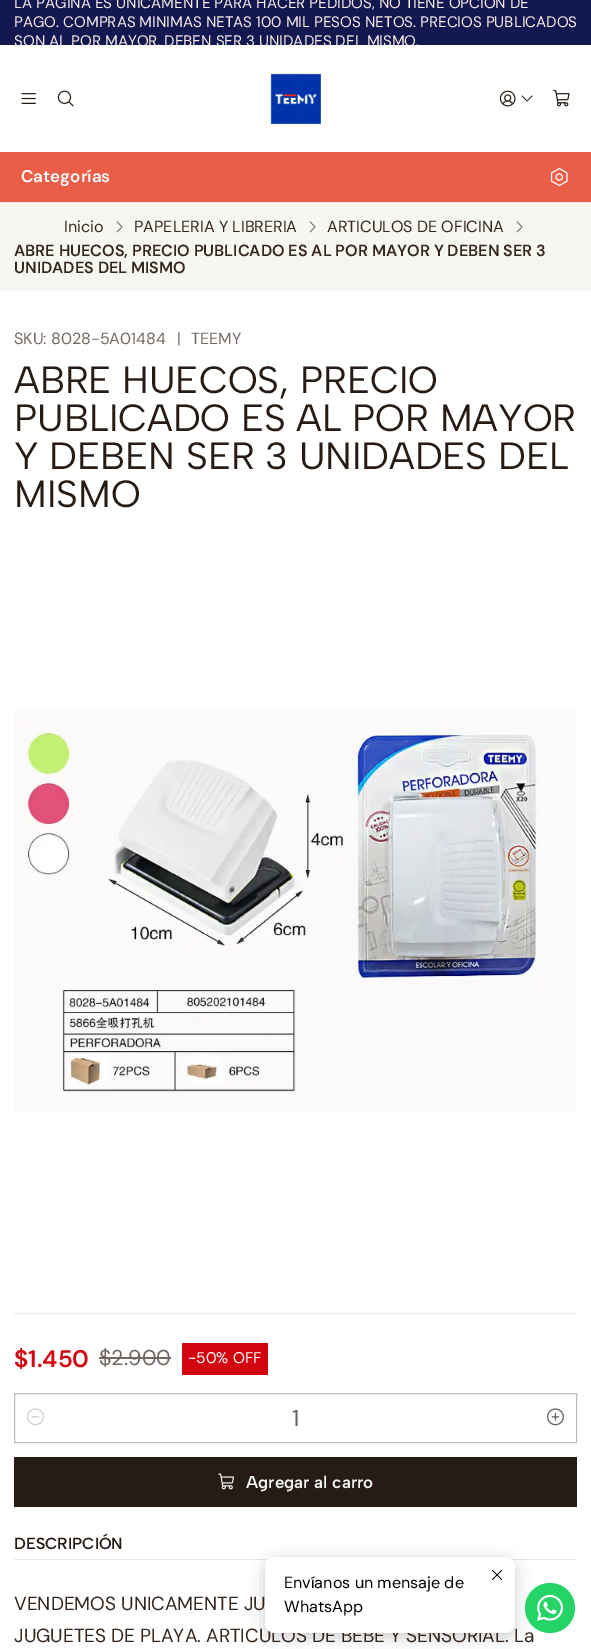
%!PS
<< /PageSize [591 1649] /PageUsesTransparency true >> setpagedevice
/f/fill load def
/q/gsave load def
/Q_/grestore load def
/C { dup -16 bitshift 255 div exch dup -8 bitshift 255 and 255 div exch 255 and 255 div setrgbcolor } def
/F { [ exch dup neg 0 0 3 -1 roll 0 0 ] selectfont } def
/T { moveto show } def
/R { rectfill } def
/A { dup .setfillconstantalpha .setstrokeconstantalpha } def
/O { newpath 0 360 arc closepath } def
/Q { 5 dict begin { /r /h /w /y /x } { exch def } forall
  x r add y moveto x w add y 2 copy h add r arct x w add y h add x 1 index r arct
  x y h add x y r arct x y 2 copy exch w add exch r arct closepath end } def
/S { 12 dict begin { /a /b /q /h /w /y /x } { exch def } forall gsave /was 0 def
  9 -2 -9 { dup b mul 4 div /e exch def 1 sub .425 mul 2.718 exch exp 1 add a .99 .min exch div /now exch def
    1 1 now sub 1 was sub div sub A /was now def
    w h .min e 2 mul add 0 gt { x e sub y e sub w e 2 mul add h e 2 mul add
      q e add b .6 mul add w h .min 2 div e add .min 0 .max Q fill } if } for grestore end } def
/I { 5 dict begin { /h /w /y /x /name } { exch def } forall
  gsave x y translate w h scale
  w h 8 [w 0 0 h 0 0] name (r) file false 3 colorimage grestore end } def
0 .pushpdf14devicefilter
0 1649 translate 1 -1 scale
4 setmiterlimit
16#FFFFFF C
0 0 591 1649 R
16#141850 C
0 0 591 45 R
/DMSans-Regular 15.2 F
16#F9EBE9 C
(LA PAGINA ES UNICAMENTE PARA HACER PEDIDOS, NO TIENE OPCION DE) 14 8 T
(PAGO. COMPRAS MINIMAS NETAS 100 MIL PESOS NETOS. PRECIOS PUBLICADOS) 14 27 T
q
14 0 563 45 rectclip
(SON AL POR MAYOR, DEBEN SER 3 UNIDADES DEL MISMO.) 14 46 T
Q_
16#E9E8E8 C
0 202 591 1 R
(1.rgb) 21 93 15 11 I
(2.rgb) 57 90 17 17 I
(3.rgb) 270 73 51 51 I
(4.rgb) 499 90 17 17 I
(5.rgb) 521 95 12 7 I
(6.rgb) 553 90 17 17 I
16#EA5E48 C
0 152 591 50 R
/DMSans-SemiBold 17 F
16#FFFFFF C
(Categorías) 21 182 T
(7.rgb) 550 168 18 18 I
16#F7F7F2 C
0 203 591 88 R
/DMSans-Regular 16.15 F
16#35271D C
(Inicio) 64 232 T
(8.rgb) 116 221 7 12 I
(PAPELERIA Y LIBRERIA) 134 232 T
(8.rgb) 309 221 7 12 I
(ARTICULOS DE OFICINA) 327 232 T
(8.rgb) 516 221 7 12 I
/DMSans-SemiBold 16.15 F
(ABRE HUECOS, PRECIO PUBLICADO ES AL POR MAYOR Y DEBEN SER 3) 14 256 T
(UNIDADES DEL MISMO) 14 273 T
/DMSans-Regular 16.15 F
16#726861 C
(SKU: 8028-5A01484) 14 344 T
(|) 177 344 T
(TEEMY) 191 344 T
/AlbertSans-Regular 38 F
16#261C15 C
(ABRE HUECOS, PRECIO) 14 393 T
(PUBLICADO ES AL POR MAYOR) 14 431 T
(Y DEBEN SER 3 UNIDADES DEL) 14 469 T
(MISMO) 14 507 T
(9.rgb) 14 709 563 403 I
16#E9E8E8 C
14 1313 563 1 R
/DMSans-SemiBold 24 F
16#D2040F C
($1.450) 14 1367 T
/DMSans-Regular 21.5 F
16#726861 C
($2.900) 99 1365 T
99 1357 72 2 R
16#D2040F C
182 1343 86 32 R
/DMSans-Regular 15.5 F
16#FFFFFF C
(-50% OFF) 188 1363 T
16#BEBBB9 C
14.5 1393.5 562 49 rectstroke
(10.rgb) 27 1408 17 18 I
/DMSans-Regular 23 F
16#67605B C
(1) 292 1426 T
(11.rgb) 547 1408 17 18 I
16#261C15 C
14 1457 563 50 R
(12.rgb) 218 1473 16 17 I
/AlbertSans-SemiBold 17 F
16#F5F5F5 C
(Agregar al carro) 246 1488 T
16#E9E8E8 C
14 1559 563 1 R
/AlbertSans-SemiBold 16.15 F
16#261C15 C
(DESCRIPCIÓN) 14 1549 T
/DMSans-Regular 19 F
16#35271D C
(VENDEMOS UNICAMENTE JU) 14 1610 T
(JUGUETES DE PLAYA. ARTICULOS DE BEBE Y SENSORIAL. La) 14 1642 T
16#000000 C
265 1561 250 76 10 7.5 .2 S
16#FFFFFF C
265 1557 250 76 10 Q f
(13.rgb) 492 1569 11 11 I
/DMSans-Regular 16.15 F
16#000000 C
(Envíanos un mensaje de) 284 1588 T
(WhatsApp) 284 1612 T
16#25D366 C
550 1608 25 O f
(14.rgb) 537 1594 26 27 I
.poppdf14devicefilter showpage
